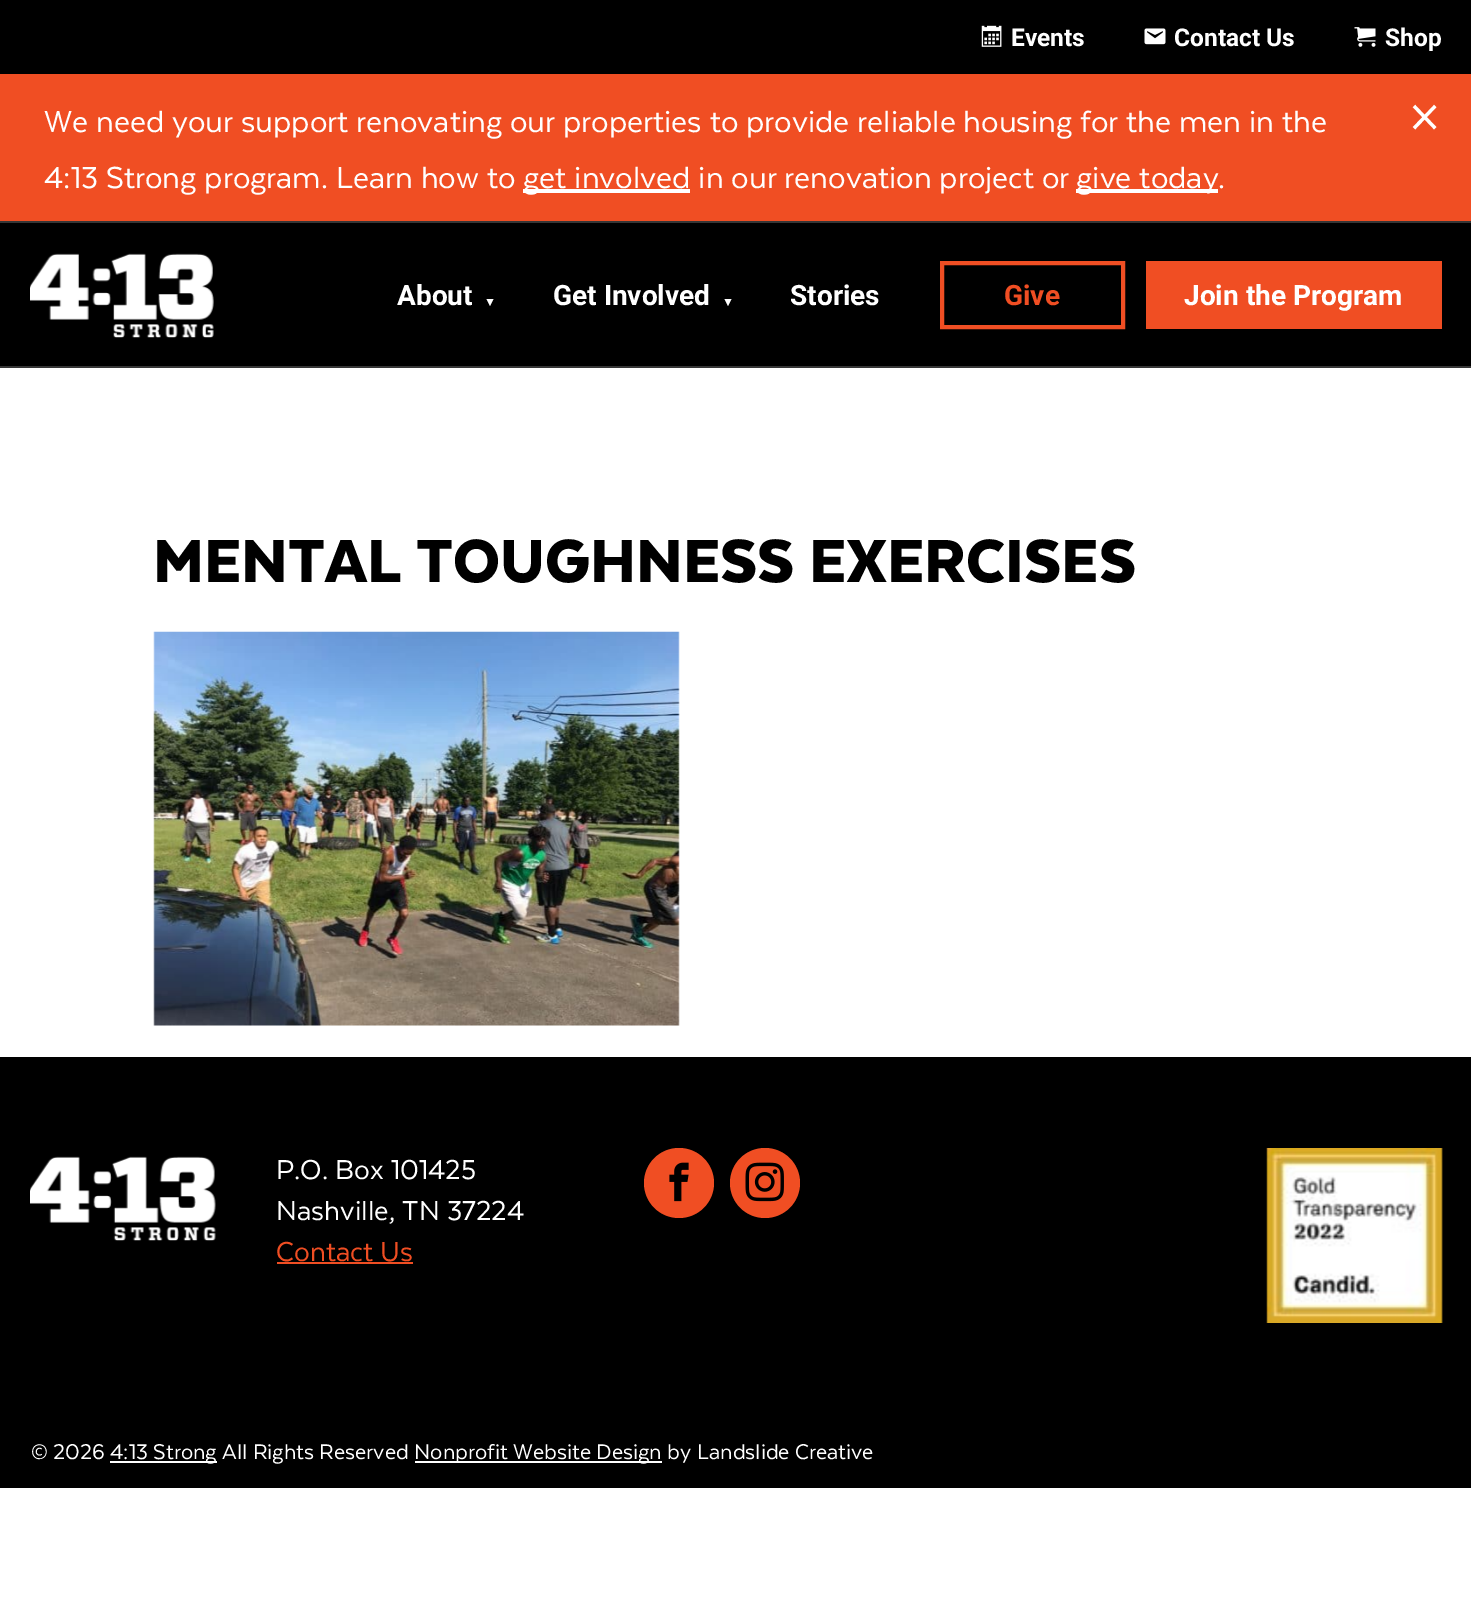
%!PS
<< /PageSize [1471 1619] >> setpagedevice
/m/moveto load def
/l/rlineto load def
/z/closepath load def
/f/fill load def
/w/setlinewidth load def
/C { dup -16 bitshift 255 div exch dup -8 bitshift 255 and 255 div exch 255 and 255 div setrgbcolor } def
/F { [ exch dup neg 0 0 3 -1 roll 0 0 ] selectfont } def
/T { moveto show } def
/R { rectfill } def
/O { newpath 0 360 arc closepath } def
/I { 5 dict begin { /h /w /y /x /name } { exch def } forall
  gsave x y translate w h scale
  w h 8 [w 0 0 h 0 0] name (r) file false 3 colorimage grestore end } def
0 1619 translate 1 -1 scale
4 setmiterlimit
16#FFFFFF C
0 0 1471 1619 R
16#000000 C
0 0 1471 74 R
(1.rgb) 981 25 21 22 I
/Roboto-Bold 24.5 F
16#FFFFFF C
(Events) 1011 46 T
(2.rgb) 1144 28 22 17 I
(Contact Us) 1174 46 T
(3.rgb) 1354 27 22 20 I
(Shop) 1385 46 T
16#000000 C
0 223 1471 143 R
16#F04E23 C
0 74 1471 147 R
/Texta-Regular 35 F
16#FFFFFF C
(We need your support renovating our properties to provide reliable housing for the men in the) 44 132 T
(4:13 Strong program. Learn how to) 44 188 T
523 189 167 4 R
(get involved in our renovation project or) 523 188 T
1076 189 142 4 R
(give today.) 1076 188 T
/Texta-Regular 63 F
(×) 1409 136 T
16#363636 C
0 221 1471 2 R
0 366 1471 2 R
(4.rgb) 30 253 184 85 I
/Roboto-Bold 28 F
16#FFFFFF C
(About) 397 305 T
486.5 299 m 7 0 l -3.5 7 l z f
(Get Involved) 553 305 T
724.5 299 m 7 0 l -3.5 7 l z f
(Stories) 790 305 T
16#F04E23 C
4 w
942 263 181 64 rectstroke
(Give) 1004 305 T
1146 261 296 68 R
16#FFFFFF C
(Join the Program) 1184 305 T
/Texta-Black 70 F
16#000000 C
(MENTAL TOUGHNESS EXERCISES) 153 582 T
(5.rgb) 153 631 527 395 I
0 1057 1471 431 R
(6.rgb) 30 1156 186 85 I
/Texta-Regular 31.5 F
16#FFFFFF C
(P.O. Box 101425) 276 1179 T
(Nashville, TN 37224) 276 1220 T
16#F04E23 C
(Contact Us) 276 1261 T
277 1262 136 2 R
679 1183 35 O f
(7.rgb) 669 1162 20 40 I
765 1183 35 O f
(8.rgb) 745 1162 39 40 I
(9.rgb) 1266 1148 177 175 I
/Texta-Regular 24.5 F
16#FFFFFF C
(© 2026) 31 1459 T
110 1461 107 2 R
(4:13 Strong All Rights Reserved) 110 1459 T
415 1461 247 2 R
(Nonprofit Website Design by Landslide Creative) 414 1459 T
showpage
